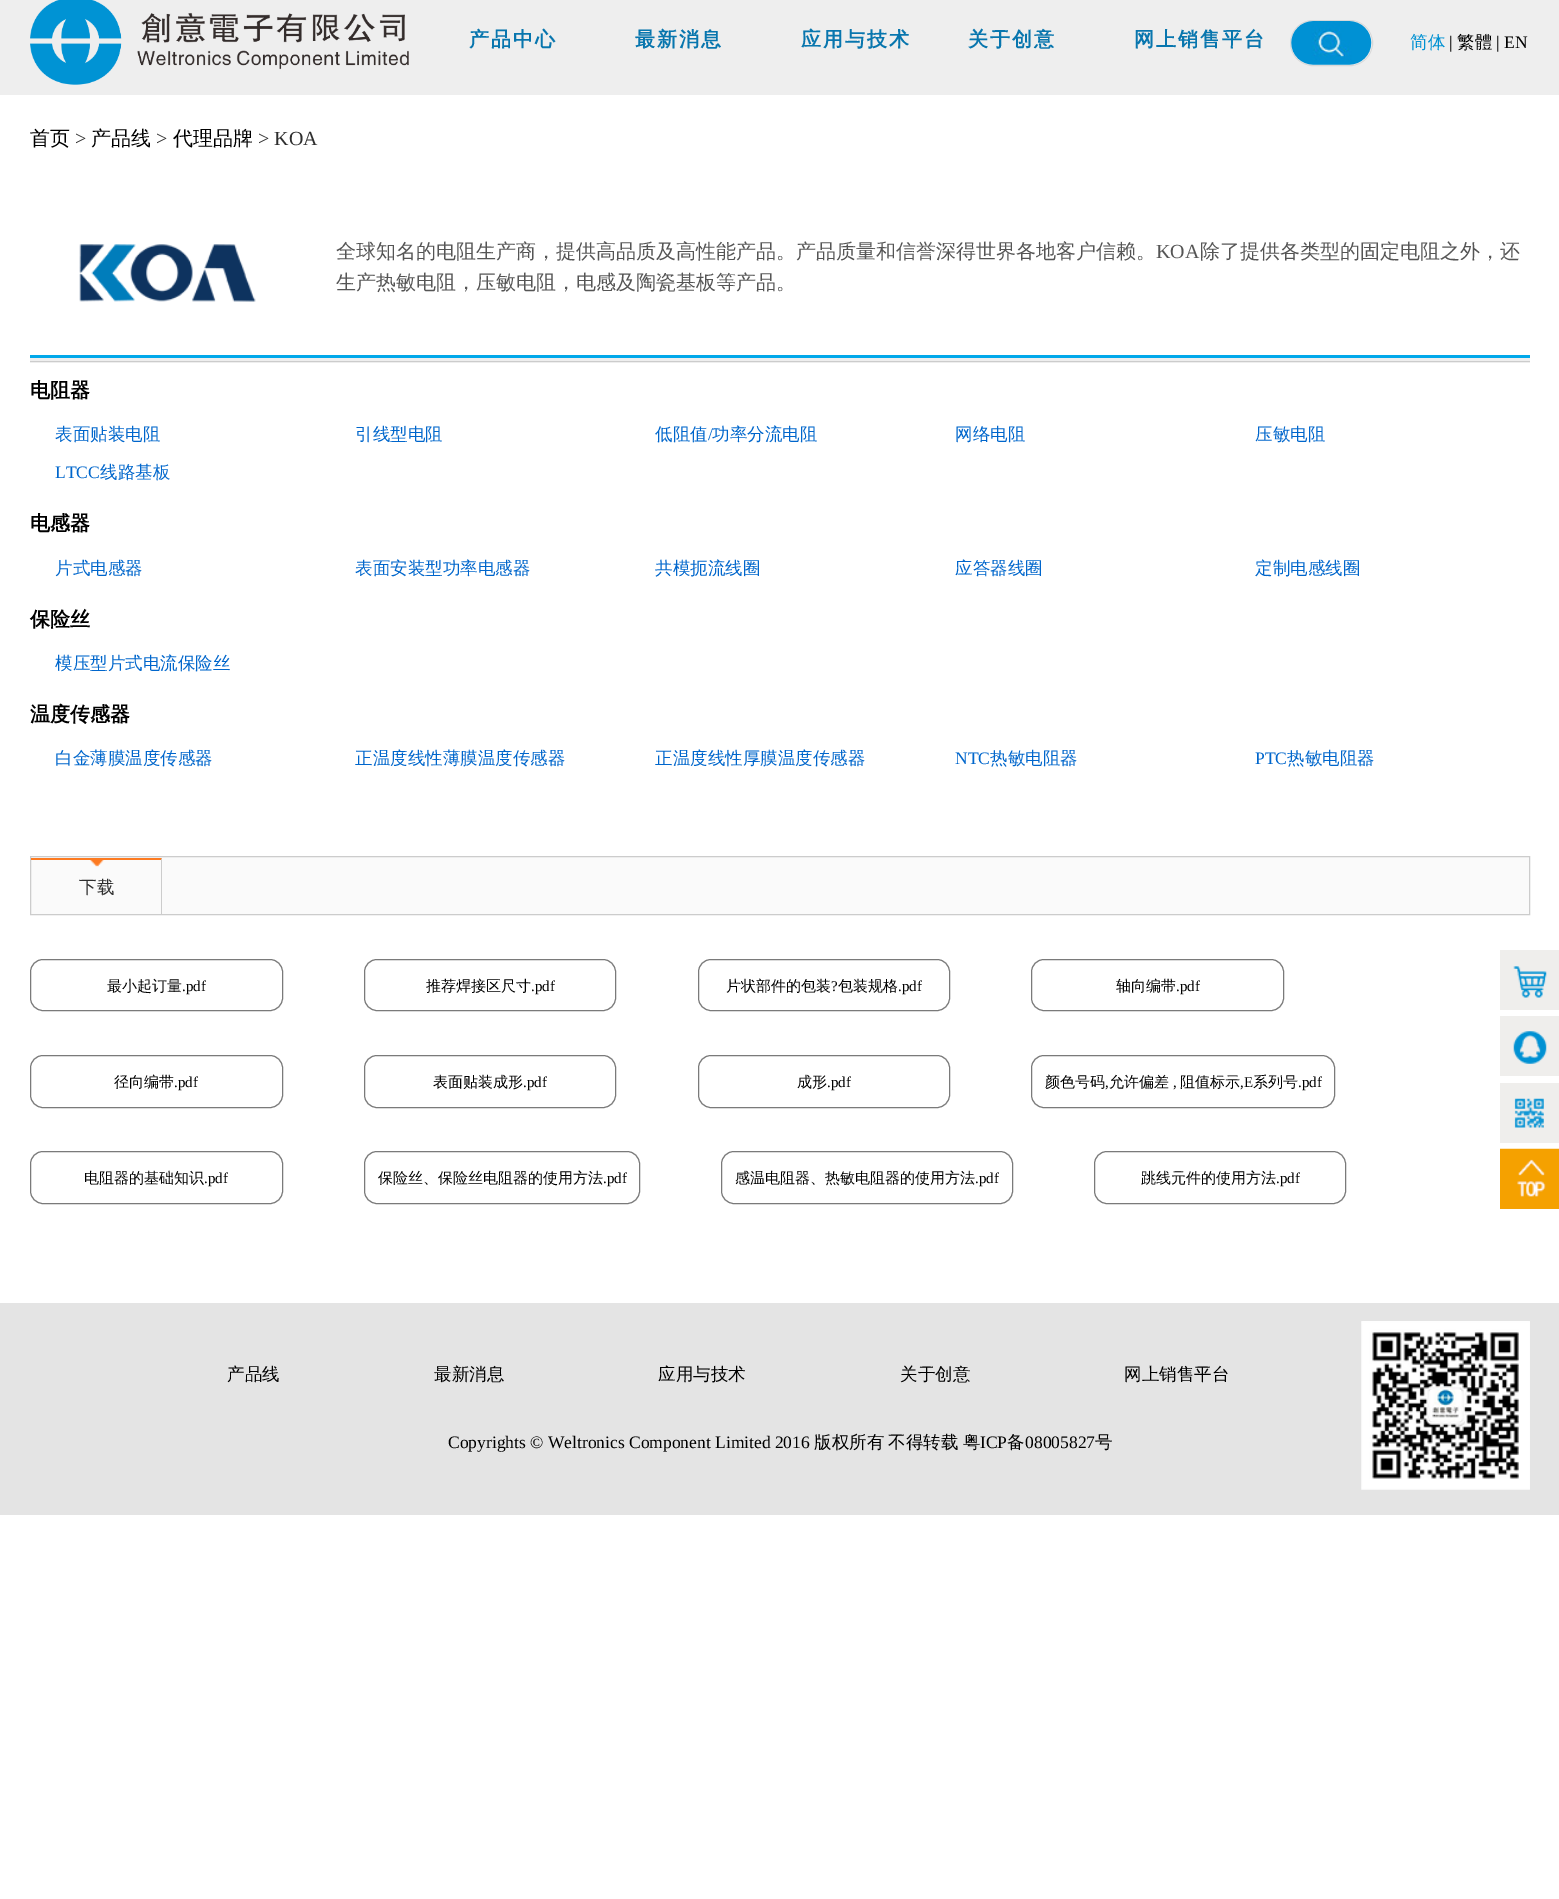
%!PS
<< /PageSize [1559 1899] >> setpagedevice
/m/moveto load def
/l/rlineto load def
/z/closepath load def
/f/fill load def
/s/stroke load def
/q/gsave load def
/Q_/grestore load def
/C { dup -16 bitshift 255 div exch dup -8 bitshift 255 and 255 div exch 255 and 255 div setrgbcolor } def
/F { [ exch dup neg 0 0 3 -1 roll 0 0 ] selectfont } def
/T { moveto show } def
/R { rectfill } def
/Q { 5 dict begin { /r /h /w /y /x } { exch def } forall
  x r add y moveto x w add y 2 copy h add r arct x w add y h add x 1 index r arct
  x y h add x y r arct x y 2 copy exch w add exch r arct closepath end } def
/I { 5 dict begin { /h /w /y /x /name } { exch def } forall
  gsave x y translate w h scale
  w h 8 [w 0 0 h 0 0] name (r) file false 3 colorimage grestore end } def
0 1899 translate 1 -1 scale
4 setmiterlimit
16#FFFFFF C
0 0 1559 1899 R
16#EEEEEE C
0 0 1559 95 R
(1.rgb) 30 0 379 85 I
/WenQuanYiZenHei-Bold 20 F
16#0876AE C
469 46 m 2 0 (产品中心) ashow
635 46 m 2 0 (最新消息) ashow
801 46 m 2 0 (应用与技术) ashow
968 46 m 2 0 (关于创意) ashow
1134 46 m 2 0 (网上销售平台) ashow
16#D8D8D8 C
1290.5 20.5 82 45 22.5 Q s
(2.rgb) 1291 21 81 44 I
/WenQuanYiZenHei-Medium 17.5 F
16#0091D3 C
(简体) 1410 48 T
/LiberationSerif-Regular 17.5 F
16#000000 C
(|) 1449 48 T
/WenQuanYiZenHei-Medium 17.5 F
(繁體) 1457 48 T
/LiberationSerif-Regular 17.5 F
(| EN) 1496 48 T
/WenQuanYiZenHei-Medium 20 F
(首页) 30 145 T
/LiberationSerif-Regular 20 F
16#2E2E2E C
(>) 75 145 T
/WenQuanYiZenHei-Medium 20 F
16#000000 C
(产品线) 91 145 T
/LiberationSerif-Regular 20 F
16#2E2E2E C
(>) 156 145 T
/WenQuanYiZenHei-Medium 20 F
16#000000 C
(代理品牌) 173 145 T
/LiberationSerif-Regular 20 F
16#2E2E2E C
(> KOA) 258 145 T
(3.rgb) 79 244 177 58 I
/WenQuanYiZenHei-Medium 20 F
16#555555 C
(全球知名的电阻生产商，提供高品质及高性能产品。产品质量和信誉深得世界各地客户信赖。) 336 258 T
/LiberationSerif-Regular 20 F
(KOA) 1156 258 T
/WenQuanYiZenHei-Medium 20 F
(除了提供各类型的固定电阻之外，还) 1200 258 T
(生产热敏电阻，压敏电阻，电感及陶瓷基板等产品。) 336 289 T
16#EEEEEE C
30 358 1500 5 R
16#00A8EA C
30 355 1500 3 R
16#CCCCCC C
30 361 1500 1 R
/WenQuanYiZenHei-Bold 20 F
16#000000 C
(电阻器) 30 397 T
/WenQuanYiZenHei-Medium 17.5 F
16#0066CC C
(表面贴装电阻) 55 440 T
(引线型电阻) 355 440 T
(低阻值) 655 440 T
/LiberationSerif-Regular 17.5 F
(/) 708 440 T
/WenQuanYiZenHei-Medium 17.5 F
(功率分流电阻) 712 440 T
(网络电阻) 955 440 T
(压敏电阻) 1255 440 T
/LiberationSerif-Regular 17.5 F
(LTCC) 55 478 T
/WenQuanYiZenHei-Medium 17.5 F
(线路基板) 100 478 T
/WenQuanYiZenHei-Bold 20 F
16#000000 C
(电感器) 30 530 T
/WenQuanYiZenHei-Medium 17.5 F
16#0066CC C
(片式电感器) 55 574 T
(表面安装型功率电感器) 355 574 T
(共模扼流线圈) 655 574 T
(应答器线圈) 955 574 T
(定制电感线圈) 1255 574 T
/WenQuanYiZenHei-Bold 20 F
16#000000 C
(保险丝) 30 626 T
/WenQuanYiZenHei-Medium 17.5 F
16#0066CC C
(模压型片式电流保险丝) 55 669 T
/WenQuanYiZenHei-Bold 20 F
16#000000 C
(温度传感器) 30 721 T
/WenQuanYiZenHei-Medium 17.5 F
16#0066CC C
(白金薄膜温度传感器) 55 764 T
(正温度线性薄膜温度传感器) 355 764 T
(正温度线性厚膜温度传感器) 655 764 T
/LiberationSerif-Regular 17.5 F
(NTC) 955 764 T
/WenQuanYiZenHei-Medium 17.5 F
(热敏电阻器) 990 764 T
/LiberationSerif-Regular 17.5 F
(PTC) 1255 764 T
/WenQuanYiZenHei-Medium 17.5 F
(热敏电阻器) 1287 764 T
16#FAFAFA C
30.5 856.5 m 1499 0 l 0 58 l -1499 0 l z q f Q_
16#CCCCCC C
s
(4.rgb) 90 860 14 7 I
16#FD7A21 C
31 858 m 131 0 l -1 2 l -130 0 l z f
16#CCCCCC C
162 858 m 0 56 l -1 0 l 0 -54 l z f
16#2E2E2E C
(下载) 79 893 T
16#7A7A7A C
30.5 959.5 252 51 12.5 Q s
/WenQuanYiZenHei-Medium 15 F
16#000000 C
(最小起订量) 107 991 T
/LiberationSerif-Regular 15 F
(.pdf) 182 991 T
16#7A7A7A C
364.5 959.5 251 51 12.5 Q s
/WenQuanYiZenHei-Medium 15 F
16#000000 C
(推荐焊接区尺寸) 426 991 T
/LiberationSerif-Regular 15 F
(.pdf) 531 991 T
16#7A7A7A C
698.5 959.5 251 51 12.5 Q s
/WenQuanYiZenHei-Medium 15 F
16#000000 C
(片状部件的包装) 726 991 T
/LiberationSerif-Regular 15 F
(?) 831 991 T
/WenQuanYiZenHei-Medium 15 F
(包装规格) 838 991 T
/LiberationSerif-Regular 15 F
(.pdf) 898 991 T
16#7A7A7A C
1031.5 959.5 252 51 12.5 Q s
/WenQuanYiZenHei-Medium 15 F
16#000000 C
(轴向编带) 1116 991 T
/LiberationSerif-Regular 15 F
(.pdf) 1176 991 T
16#7A7A7A C
30.5 1055.5 252 52 12.5 Q s
/WenQuanYiZenHei-Medium 15 F
16#000000 C
(径向编带) 114 1087 T
/LiberationSerif-Regular 15 F
(.pdf) 174 1087 T
16#7A7A7A C
364.5 1055.5 251 52 12.5 Q s
/WenQuanYiZenHei-Medium 15 F
16#000000 C
(表面贴装成形) 433 1087 T
/LiberationSerif-Regular 15 F
(.pdf) 523 1087 T
16#7A7A7A C
698.5 1055.5 251 52 12.5 Q s
/WenQuanYiZenHei-Medium 15 F
16#000000 C
(成形) 797 1087 T
/LiberationSerif-Regular 15 F
(.pdf) 827 1087 T
16#7A7A7A C
1031.5 1055.5 303 52 12.5 Q s
/WenQuanYiZenHei-Medium 15 F
16#000000 C
(颜色号码) 1045 1087 T
/LiberationSerif-Regular 15 F
(,) 1105 1087 T
/WenQuanYiZenHei-Medium 15 F
(允许偏差) 1109 1087 T
/LiberationSerif-Regular 15 F
(,) 1173 1087 T
/WenQuanYiZenHei-Medium 15 F
(阻值标示) 1180 1087 T
/LiberationSerif-Regular 15 F
(,E) 1240 1087 T
/WenQuanYiZenHei-Medium 15 F
(系列号) 1253 1087 T
/LiberationSerif-Regular 15 F
(.pdf) 1298 1087 T
16#7A7A7A C
30.5 1151.5 252 52 12.5 Q s
/WenQuanYiZenHei-Medium 15 F
16#000000 C
(电阻器的基础知识) 84 1183 T
/LiberationSerif-Regular 15 F
(.pdf) 204 1183 T
16#7A7A7A C
364.5 1151.5 275 52 12.5 Q s
/WenQuanYiZenHei-Medium 15 F
16#000000 C
(保险丝、保险丝电阻器的使用方法) 378 1183 T
/LiberationSerif-Regular 15 F
(.pdf) 603 1183 T
16#7A7A7A C
721.5 1151.5 291 52 12.5 Q s
/WenQuanYiZenHei-Medium 15 F
16#000000 C
(感温电阻器、热敏电阻器的使用方法) 735 1183 T
/LiberationSerif-Regular 15 F
(.pdf) 975 1183 T
16#7A7A7A C
1094.5 1151.5 251 52 12.5 Q s
/WenQuanYiZenHei-Medium 15 F
16#000000 C
(跳线元件的使用方法) 1141 1183 T
/LiberationSerif-Regular 15 F
(.pdf) 1276 1183 T
16#EFEEEC C
1500 950 59 60 R
(5.rgb) 1513 966 34 32 I
1500 1016 59 60 R
(6.rgb) 1513 1031 34 33 I
1500 1083 59 60 R
(7.rgb) 1514 1098 30 30 I
(8.rgb) 1500 1148 59 61 I
16#E4E4E4 C
0 1303 1559 212 R
/WenQuanYiZenHei-Medium 17.5 F
16#000000 C
(产品线) 227 1380 T
(最新消息) 434 1380 T
(应用与技术) 658 1380 T
(关于创意) 900 1380 T
(网上销售平台) 1124 1380 T
(9.rgb) 1361 1321 169 169 I
/LiberationSerif-Regular 17.5 F
(Copyrights © Weltronics Component Limited 2016) 448 1448 T
/WenQuanYiZenHei-Medium 17.5 F
(版权所有) 814 1448 T
(不得转载) 888 1448 T
(粤) 963 1448 T
/LiberationSerif-Regular 17.5 F
(ICP) 980 1448 T
/WenQuanYiZenHei-Medium 17.5 F
(备) 1007 1448 T
/LiberationSerif-Regular 17.5 F
(08005827) 1025 1448 T
/WenQuanYiZenHei-Medium 17.5 F
(号) 1095 1448 T
showpage
